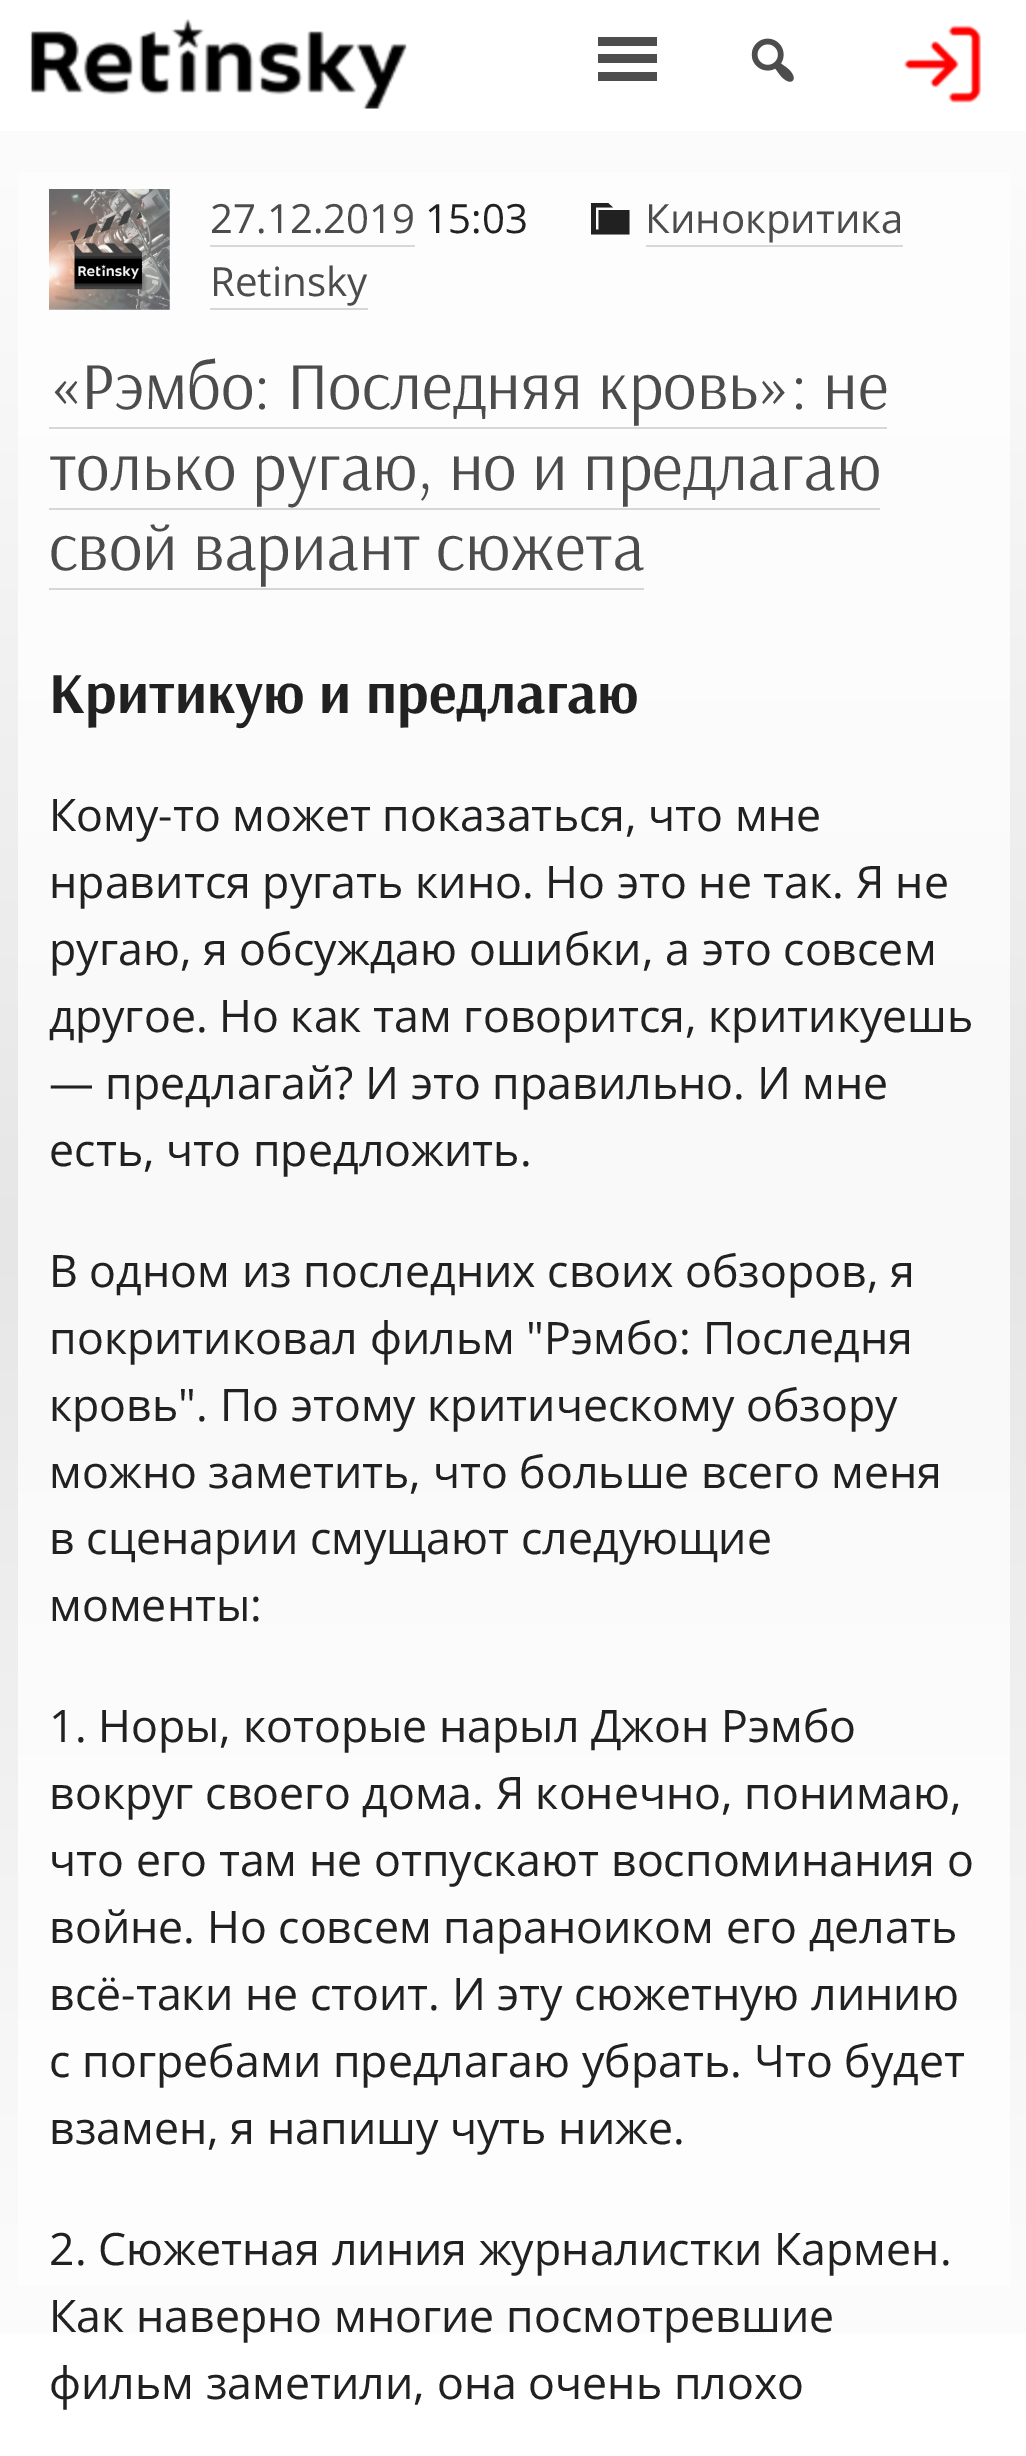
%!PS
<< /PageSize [1026 2456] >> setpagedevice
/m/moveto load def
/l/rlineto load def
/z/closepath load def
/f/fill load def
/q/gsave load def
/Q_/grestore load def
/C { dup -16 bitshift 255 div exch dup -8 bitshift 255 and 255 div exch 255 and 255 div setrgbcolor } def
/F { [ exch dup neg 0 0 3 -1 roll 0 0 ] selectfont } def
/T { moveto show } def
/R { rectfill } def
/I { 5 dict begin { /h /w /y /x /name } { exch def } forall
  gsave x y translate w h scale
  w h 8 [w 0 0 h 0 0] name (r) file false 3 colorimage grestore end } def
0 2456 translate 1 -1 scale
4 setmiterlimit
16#FFFFFF C
0 0 1026 2456 R
(1.rgb) 30 19 377 90 I
16#4D4D4D C
657 46 m 0 -9 l -59 0 l 0 9 l z 657 63 m 0 -9 l -59 0 l 0 9 l z 657 81 m 0 -9 l -59 0 l 0 9 l z f
(2.rgb) 751 38 43 44 I
(3.rgb) 904 25 77 78 I
q 0 131 m 1026 0 l 0 2203 l -1026 0 l z clip newpath
<< /ShadingType 2 /ColorSpace /DeviceRGB /Coords [514 0 514 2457] /Extend [true true] /Function << /FunctionType 3 /Domain [0 1] /Functions [<< /FunctionType 2 /Domain [0 1] /C0 [1 1 1] /C1 [.902 .902 .902] /N 1 >> << /FunctionType 2 /Domain [0 1] /C0 [.902 .902 .902] /C1 [1 1 1] /N 1 >>] /Bounds [.5] /Encode [0 1 0 1] >> >> shfill Q_
q 18 172 m 992 0 l 0 2113 l -992 0 l z clip newpath
<< /ShadingType 2 /ColorSpace /DeviceRGB /Coords [514 0 514 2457] /Extend [true true] /Function << /FunctionType 3 /Domain [0 1] /Functions [<< /FunctionType 2 /Domain [0 1] /C0 [1 1 1] /C1 [.976 .976 .976] /N 1 >> << /FunctionType 2 /Domain [0 1] /C0 [.976 .976 .976] /C1 [1 1 1] /N 1 >>] /Bounds [.5] /Encode [0 1 0 1] >> >> shfill Q_
(4.rgb) 49 189 121 121 I
/OpenSans-Regular 40.25 F
16#4C4C4C C
(27.12.2019) 210 233 T
16#D8D8D8 C
210 245 205 2 R
16#212121 C
(15:03) 425 233 T
598.5 210 m 31 0 l 0 24.5 l -38.5 0 l 0 -31.5 l 17 0 l 5 4.5 l -17 0 l 0 22 l 2.5 0 l z f
16#4C4C4C C
(Кинокритика) 645 233 T
16#D8D8D8 C
646 245 257 2 R
16#4C4C4C C
(Retinsky) 210 296 T
16#D7D7D7 C
210 308 158 2 R
/Arsenal-Regular 67 F
16#4C4C4C C
(«Рэмбо: Последняя кровь»: не) 49 409 T
16#D7D7D7 C
49 427 838 2 R
16#4C4C4C C
(только ругаю, но и предлагаю) 49 490 T
16#D7D7D7 C
49 508 831 2 R
16#4C4C4C C
(свой вариант сюжета) 49 570 T
16#D6D6D6 C
49 588 595 2 R
/Arsenal-Bold 58 F
16#212121 C
(Критикую и предлагаю) 49 713 T
/OpenSans-Regular 44.7 F
(Кому-то может показаться, что мне) 49 831 T
(нравится ругать кино. Но это не так. Я не) 49 898 T
(ругаю, я обсуждаю ошибки, а это совсем) 49 965 T
(другое. Но как там говорится, критикуешь) 49 1032 T
(— предлагай? И это правильно. И мне) 49 1099 T
(есть, что предложить.) 49 1166 T
(В одном из последних своих обзоров, я) 49 1287 T
(покритиковал фильм "Рэмбо: Последня) 49 1354 T
(кровь". По этому критическому обзору) 49 1421 T
(можно заметить, что больше всего меня) 49 1488 T
(в сценарии смущают следующие) 49 1554 T
(моменты:) 49 1621 T
(1. Норы, которые нарыл Джон Рэмбо) 49 1742 T
(вокруг своего дома. Я конечно, понимаю,) 49 1809 T
(что его там не отпускают воспоминания о) 49 1876 T
(войне. Но совсем параноиком его делать) 49 1943 T
(всё-таки не стоит. И эту сюжетную линию) 49 2010 T
(с погребами предлагаю убрать. Что будет) 49 2077 T
(взамен, я напишу чуть ниже.) 49 2144 T
(2. Сюжетная линия журналистки Кармен.) 49 2265 T
(Как наверно многие посмотревшие) 49 2332 T
(фильм заметили, она очень плохо) 49 2399 T
showpage
